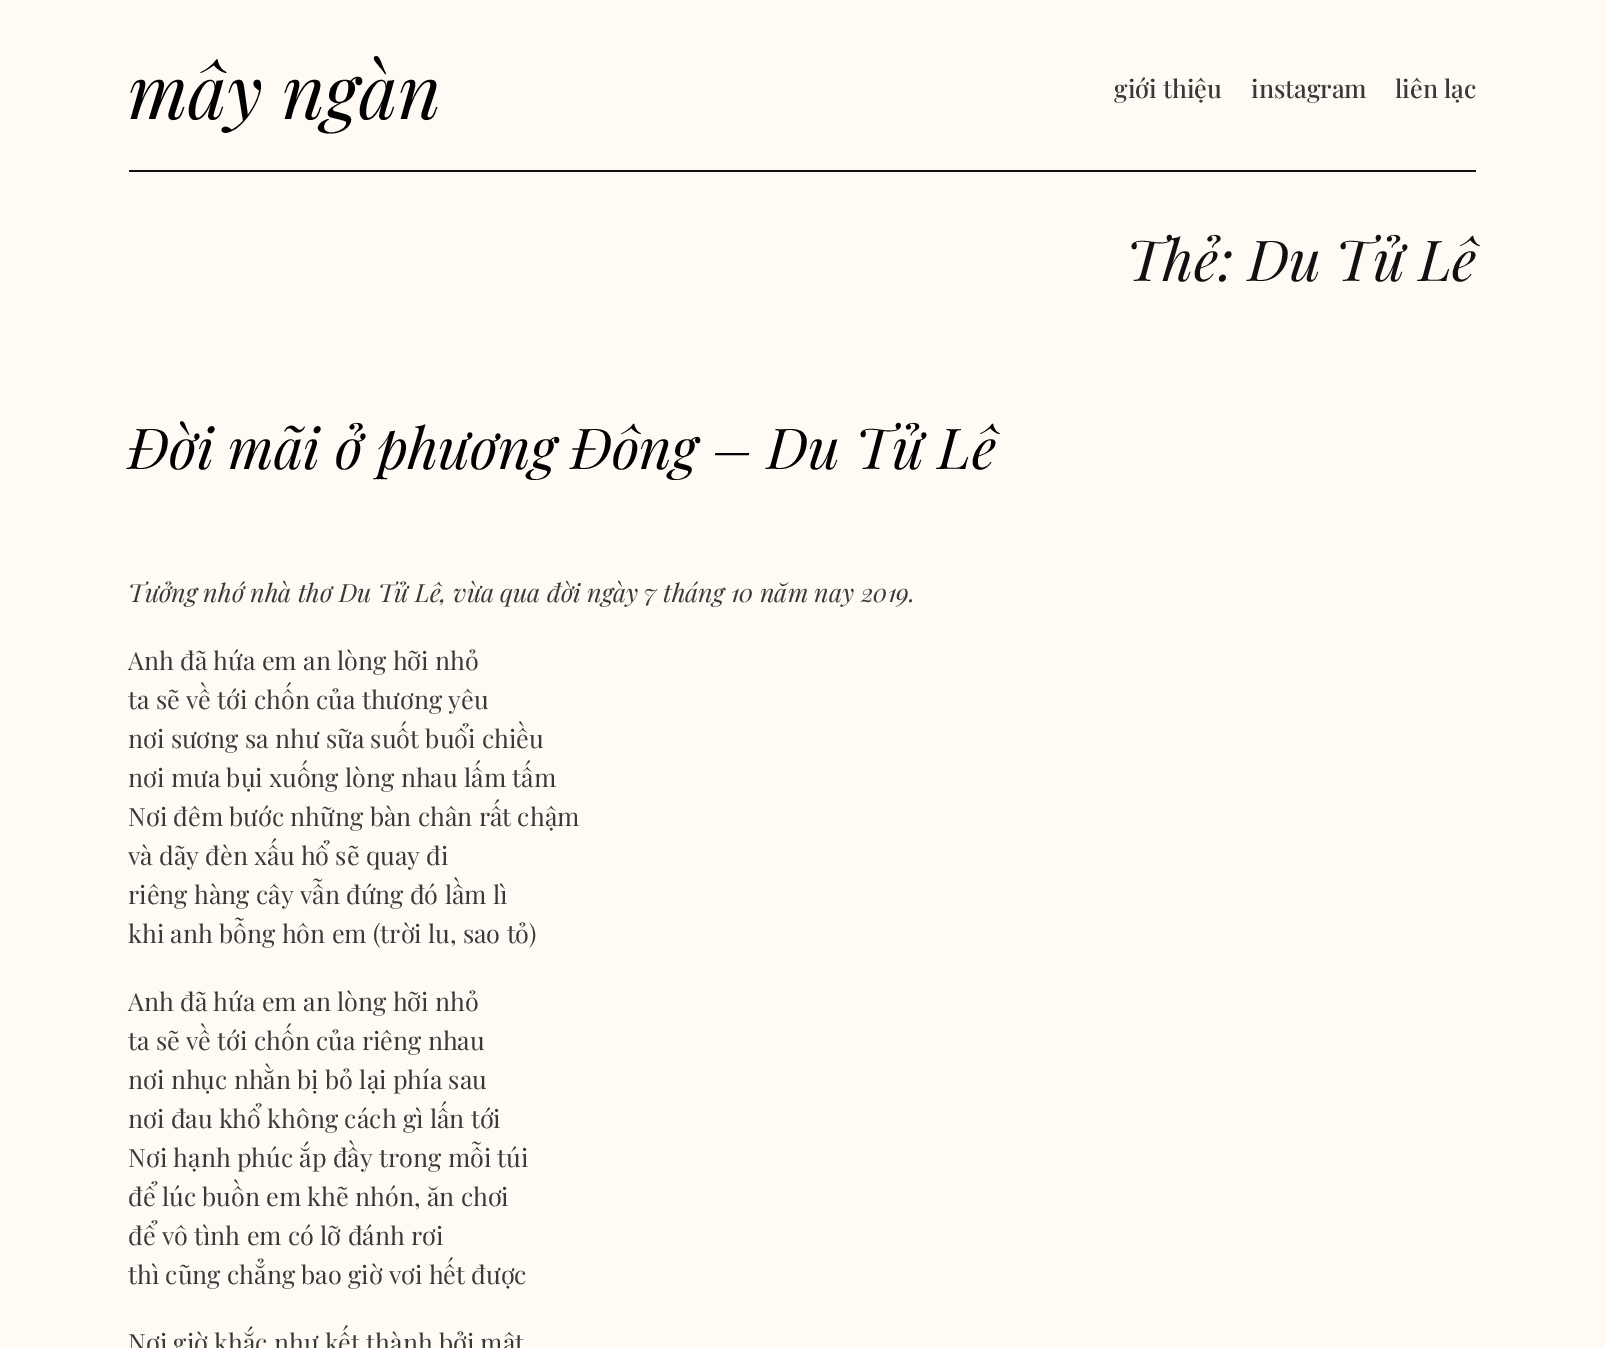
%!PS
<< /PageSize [1605 1348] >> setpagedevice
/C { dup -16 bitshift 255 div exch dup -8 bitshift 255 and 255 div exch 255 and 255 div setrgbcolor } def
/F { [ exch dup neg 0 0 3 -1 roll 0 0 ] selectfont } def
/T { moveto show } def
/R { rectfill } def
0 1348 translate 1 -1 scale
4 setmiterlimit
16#FFFBF4 C
0 0 1605 1348 R
/PlayfairDisplay-Italic 74.5 F
16#000000 C
(mây ngàn) 128 119 T
/PlayfairDisplay-Medium 25.2 F
16#393939 C
(giới thiệu) 1114 98 T
(instagram) 1251 98 T
(liên lạc) 1395 98 T
16#111111 C
129 170 1347 2 R
/PlayfairDisplay-Italic 56.6 F
(Thẻ: Du Tử Lê) 1126 281 T
16#000000 C
(Đời mãi ở phương Đông – Du Tử Lê) 128 469 T
/PlayfairDisplay-Italic 25.2 F
16#393939 C
(Tưởng nhớ nhà thơ Du Tử Lê, vừa qua đời ngày 7 tháng 10 năm nay 2019.) 128 602 T
/PlayfairDisplay-Regular 25.2 F
(Anh đã hứa em an lòng hỡi nhỏ) 128 670 T
(ta sẽ về tới chốn của thương yêu) 128 709 T
(nơi sương sa như sữa suốt buổi chiều) 128 748 T
(nơi mưa bụi xuống lòng nhau lấm tấm) 128 787 T
(Nơi đêm bước những bàn chân rất chậm) 128 826 T
(và dãy đèn xấu hổ sẽ quay đi) 128 865 T
(riêng hàng cây vẫn đứng đó lầm lì) 128 904 T
(khi anh bỗng hôn em \(trời lu, sao tỏ\)) 128 943 T
(Anh đã hứa em an lòng hỡi nhỏ) 128 1011 T
(ta sẽ về tới chốn của riêng nhau) 128 1050 T
(nơi nhục nhằn bị bỏ lại phía sau) 128 1089 T
(nơi đau khổ không cách gì lấn tới) 128 1128 T
(Nơi hạnh phúc ắp đầy trong mỗi túi) 128 1167 T
(để lúc buồn em khẽ nhón, ăn chơi) 128 1206 T
(để vô tình em có lỡ đánh rơi) 128 1245 T
(thì cũng chẳng bao giờ vơi hết được) 128 1284 T
(Nơi giờ khắc như kết thành bởi mật) 128 1352 T
showpage
